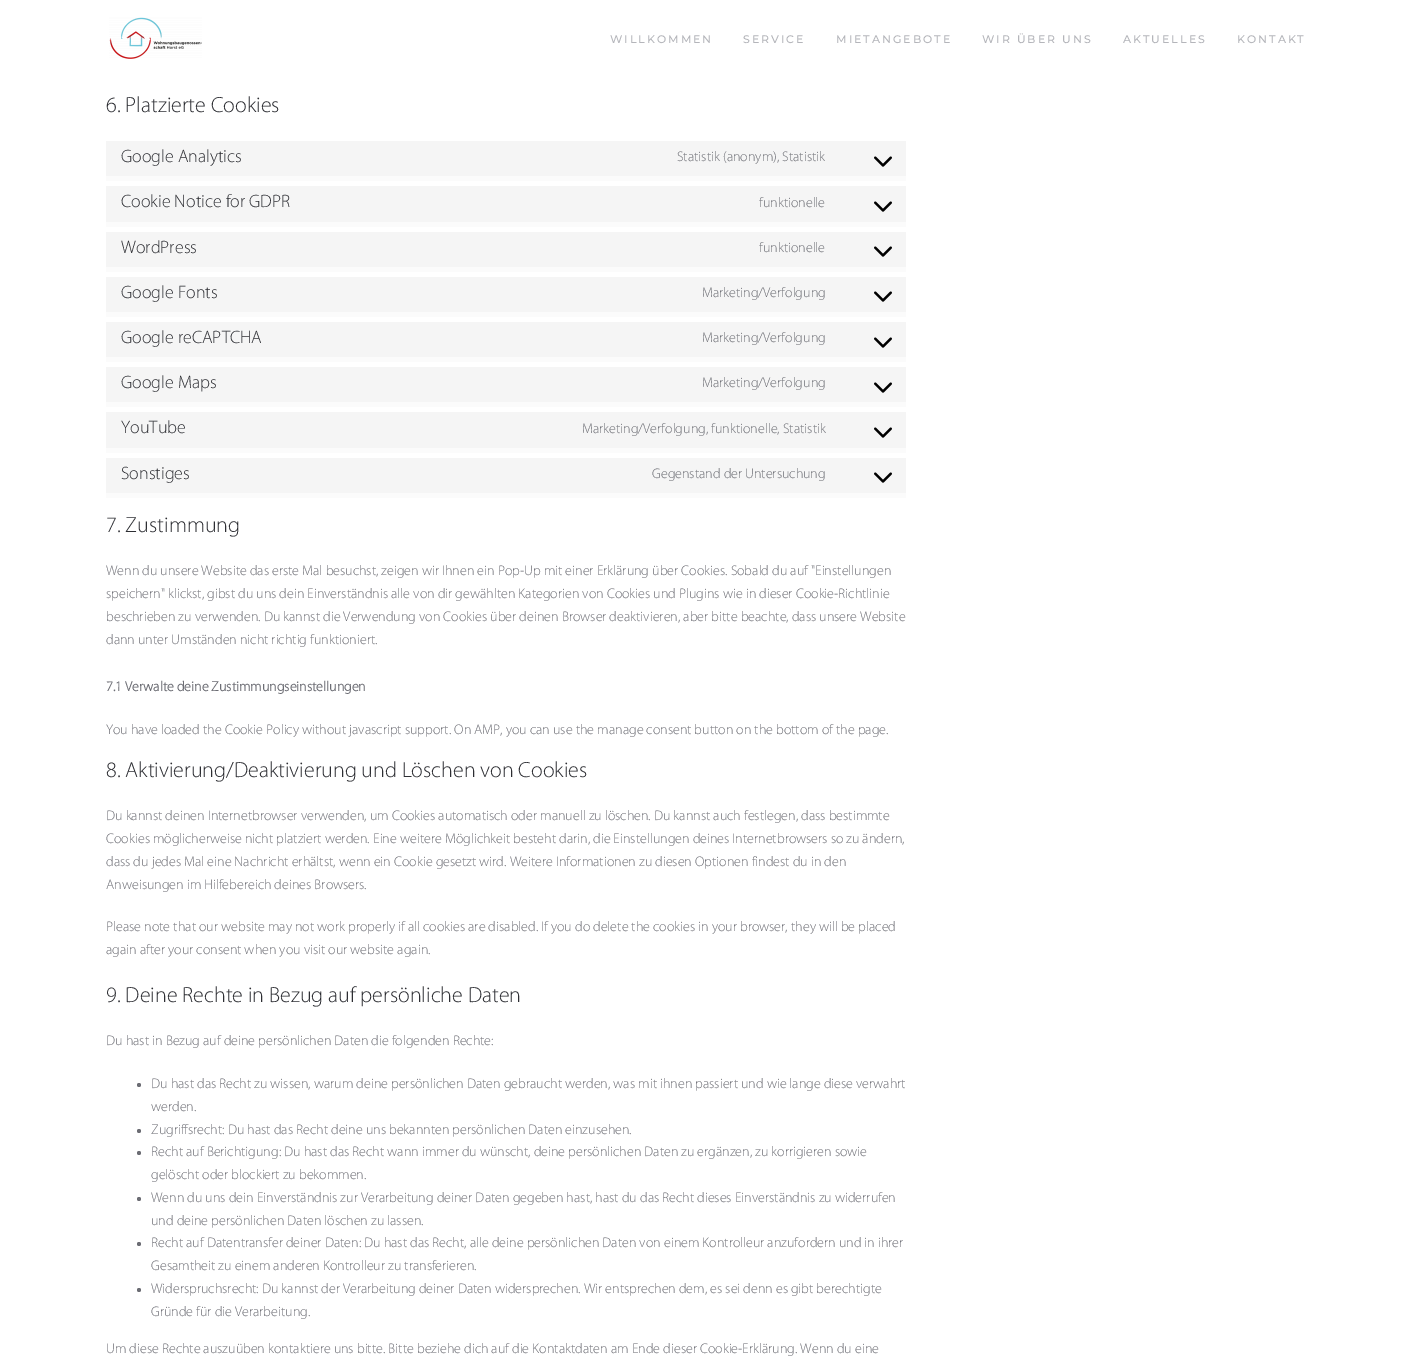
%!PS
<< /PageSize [1411 1357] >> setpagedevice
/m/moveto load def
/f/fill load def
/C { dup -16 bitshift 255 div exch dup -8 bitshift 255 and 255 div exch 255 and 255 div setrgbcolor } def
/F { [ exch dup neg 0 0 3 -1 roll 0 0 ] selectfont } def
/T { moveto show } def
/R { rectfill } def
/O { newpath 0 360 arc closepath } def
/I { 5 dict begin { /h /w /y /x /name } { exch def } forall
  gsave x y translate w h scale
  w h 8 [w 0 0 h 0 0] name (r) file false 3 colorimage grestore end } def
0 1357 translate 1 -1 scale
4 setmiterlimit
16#FFFFFF C
0 0 1411 1357 R
(1.rgb) 109 17 93 42 I
/Montserrat-Thin 11 F
16#B4B5BA C
610 43 m 2 0 (WILLKOMMEN) ashow
743 43 m 2 0 (SERVICE) ashow
836 43 m 2 0 (MIETANGEBOTE) ashow
982 43 m 2 0 (WIR ÜBER UNS) ashow
1123 43 m 2 0 (AKTUELLES) ashow
1237 43 m 2 0 (KONTAKT) ashow
/Myriad-Light 22 F
16#2D2E33 C
(6. Platzierte Cookies) 106 112 T
16#FBFBFB C
106 176 800 5 R
16#F5F5F5 C
106 141 800 35 R
/Myriad-Light 18 F
16#2D2E33 C
(Google Analytics) 121 162 T
/Myriad-Light 14 F
16#6C6D74 C
(Statistik \(anonym\), Statistik) 677 161 T
(2.rgb) 874 156 18 11 I
16#FBFBFB C
106 222 800 5 R
16#F5F5F5 C
106 186 800 36 R
/Myriad-Light 18 F
16#2D2E33 C
(Cookie Notice for GDPR) 121 207 T
/Myriad-Light 14 F
16#6C6D74 C
(funktionelle) 759 207 T
(2.rgb) 874 201 18 11 I
16#FBFBFB C
106 267 800 5 R
16#F5F5F5 C
106 232 800 35 R
/Myriad-Light 18 F
16#2D2E33 C
(WordPress) 121 253 T
/Myriad-Light 14 F
16#6C6D74 C
(funktionelle) 759 252 T
(2.rgb) 874 246 18 11 I
16#FBFBFB C
106 312 800 5 R
16#F5F5F5 C
106 277 800 35 R
/Myriad-Light 18 F
16#2D2E33 C
(Google Fonts) 121 298 T
/Myriad-Light 14 F
16#6C6D74 C
(Marketing/Verfolgung) 702 297 T
(2.rgb) 874 291 18 11 I
16#FBFBFB C
106 357 800 5 R
16#F5F5F5 C
106 322 800 35 R
/Myriad-Light 18 F
16#2D2E33 C
(Google reCAPTCHA) 121 343 T
/Myriad-Light 14 F
16#6C6D74 C
(Marketing/Verfolgung) 702 342 T
(2.rgb) 874 337 18 11 I
16#FBFBFB C
106 402 800 5 R
16#F5F5F5 C
106 367 800 35 R
/Myriad-Light 18 F
16#2D2E33 C
(Google Maps) 121 388 T
/Myriad-Light 14 F
16#6C6D74 C
(Marketing/Verfolgung) 702 387 T
(2.rgb) 874 382 18 11 I
16#FBFBFB C
106 448 800 5 R
16#F5F5F5 C
106 412 800 36 R
/Myriad-Light 18 F
16#2D2E33 C
(YouTube) 121 433 T
/Myriad-Light 14 F
16#6C6D74 C
(Marketing/Verfolgung, funktionelle, Statistik) 582 433 T
(2.rgb) 874 427 18 11 I
16#FBFBFB C
106 493 800 5 R
16#F5F5F5 C
106 458 800 35 R
/Myriad-Light 18 F
16#2D2E33 C
(Sonstiges) 121 479 T
/Myriad-Light 14 F
16#6C6D74 C
(Gegenstand der Untersuchung) 652 478 T
(2.rgb) 874 472 18 11 I
/Myriad-Light 22 F
16#2D2E33 C
(7. Zustimmung) 106 532 T
/Myriad-Light 14 F
16#6C6D74 C
(Wenn du unsere Website das erste Mal besuchst, zeigen wir Ihnen ein Pop-Up mit einer Erklärung über Cookies. Sobald du auf "Einstellungen) 106 575 T
(speichern" klickst, gibst du uns dein Einverständnis alle von dir gewählten Kategorien von Cookies und Plugins wie in dieser Cookie-Richtlinie) 106 598 T
(beschrieben zu verwenden. Du kannst die Verwendung von Cookies über deinen Browser deaktivieren, aber bitte beachte, dass unsere Website) 106 621 T
(dann unter Umständen nicht richtig funktioniert.) 106 644 T
/Myriad-Bold 14 F
(7.1 Verwalte deine Zustimmungseinstellungen) 106 691 T
/Myriad-Light 14 F
(You have loaded the Cookie Policy without javascript support. On AMP, you can use the manage consent button on the bottom of the page.) 106 734 T
/Myriad-Light 22 F
16#2D2E33 C
(8. Aktivierung/Deaktivierung und Löschen von Cookies) 106 777 T
/Myriad-Light 14 F
16#6C6D74 C
(Du kannst deinen Internetbrowser verwenden, um Cookies automatisch oder manuell zu löschen. Du kannst auch festlegen, dass bestimmte) 106 820 T
(Cookies möglicherweise nicht platziert werden. Eine weitere Möglichkeit besteht darin, die Einstellungen deines Internetbrowsers so zu ändern,) 106 843 T
(dass du jedes Mal eine Nachricht erhältst, wenn ein Cookie gesetzt wird. Weitere Informationen zu diesen Optionen findest du in den) 106 866 T
(Anweisungen im Hilfebereich deines Browsers.) 106 889 T
(Please note that our website may not work properly if all cookies are disabled. If you do delete the cookies in your browser, they will be placed) 106 931 T
(again after your consent when you visit our website again.) 106 954 T
/Myriad-Light 22 F
16#2D2E33 C
(9. Deine Rechte in Bezug auf persönliche Daten) 106 1002 T
/Myriad-Light 14 F
16#6C6D74 C
(Du hast in Bezug auf deine persönlichen Daten die folgenden Rechte:) 106 1045 T
139 1085 2 O f
(Du hast das Recht zu wissen, warum deine persönlichen Daten gebraucht werden, was mit ihnen passiert und wie lange diese verwahrt) 151 1088 T
(werden.) 151 1111 T
139 1131 2 O f
(Zugriffsrecht: Du hast das Recht deine uns bekannten persönlichen Daten einzusehen.) 151 1134 T
139 1153 2 O f
(Recht auf Berichtigung: Du hast das Recht wann immer du wünscht, deine persönlichen Daten zu ergänzen, zu korrigieren sowie) 151 1156 T
(gelöscht oder blockiert zu bekommen.) 151 1179 T
139 1199 2 O f
(Wenn du uns dein Einverständnis zur Verarbeitung deiner Daten gegeben hast, hast du das Recht dieses Einverständnis zu widerrufen) 151 1202 T
(und deine persönlichen Daten löschen zu lassen.) 151 1225 T
139 1244 2 O f
(Recht auf Datentransfer deiner Daten: Du hast das Recht, alle deine persönlichen Daten von einem Kontrolleur anzufordern und in ihrer) 151 1247 T
(Gesamtheit zu einem anderen Kontrolleur zu transferieren.) 151 1270 T
139 1290 2 O f
(Widerspruchsrecht: Du kannst der Verarbeitung deiner Daten widersprechen. Wir entsprechen dem, es sei denn es gibt berechtigte) 151 1293 T
(Gründe für die Verarbeitung.) 151 1316 T
(Um diese Rechte auszuüben kontaktiere uns bitte. Bitte beziehe dich auf die Kontaktdaten am Ende dieser Cookie-Erklärung. Wenn du eine) 106 1353 T
showpage
